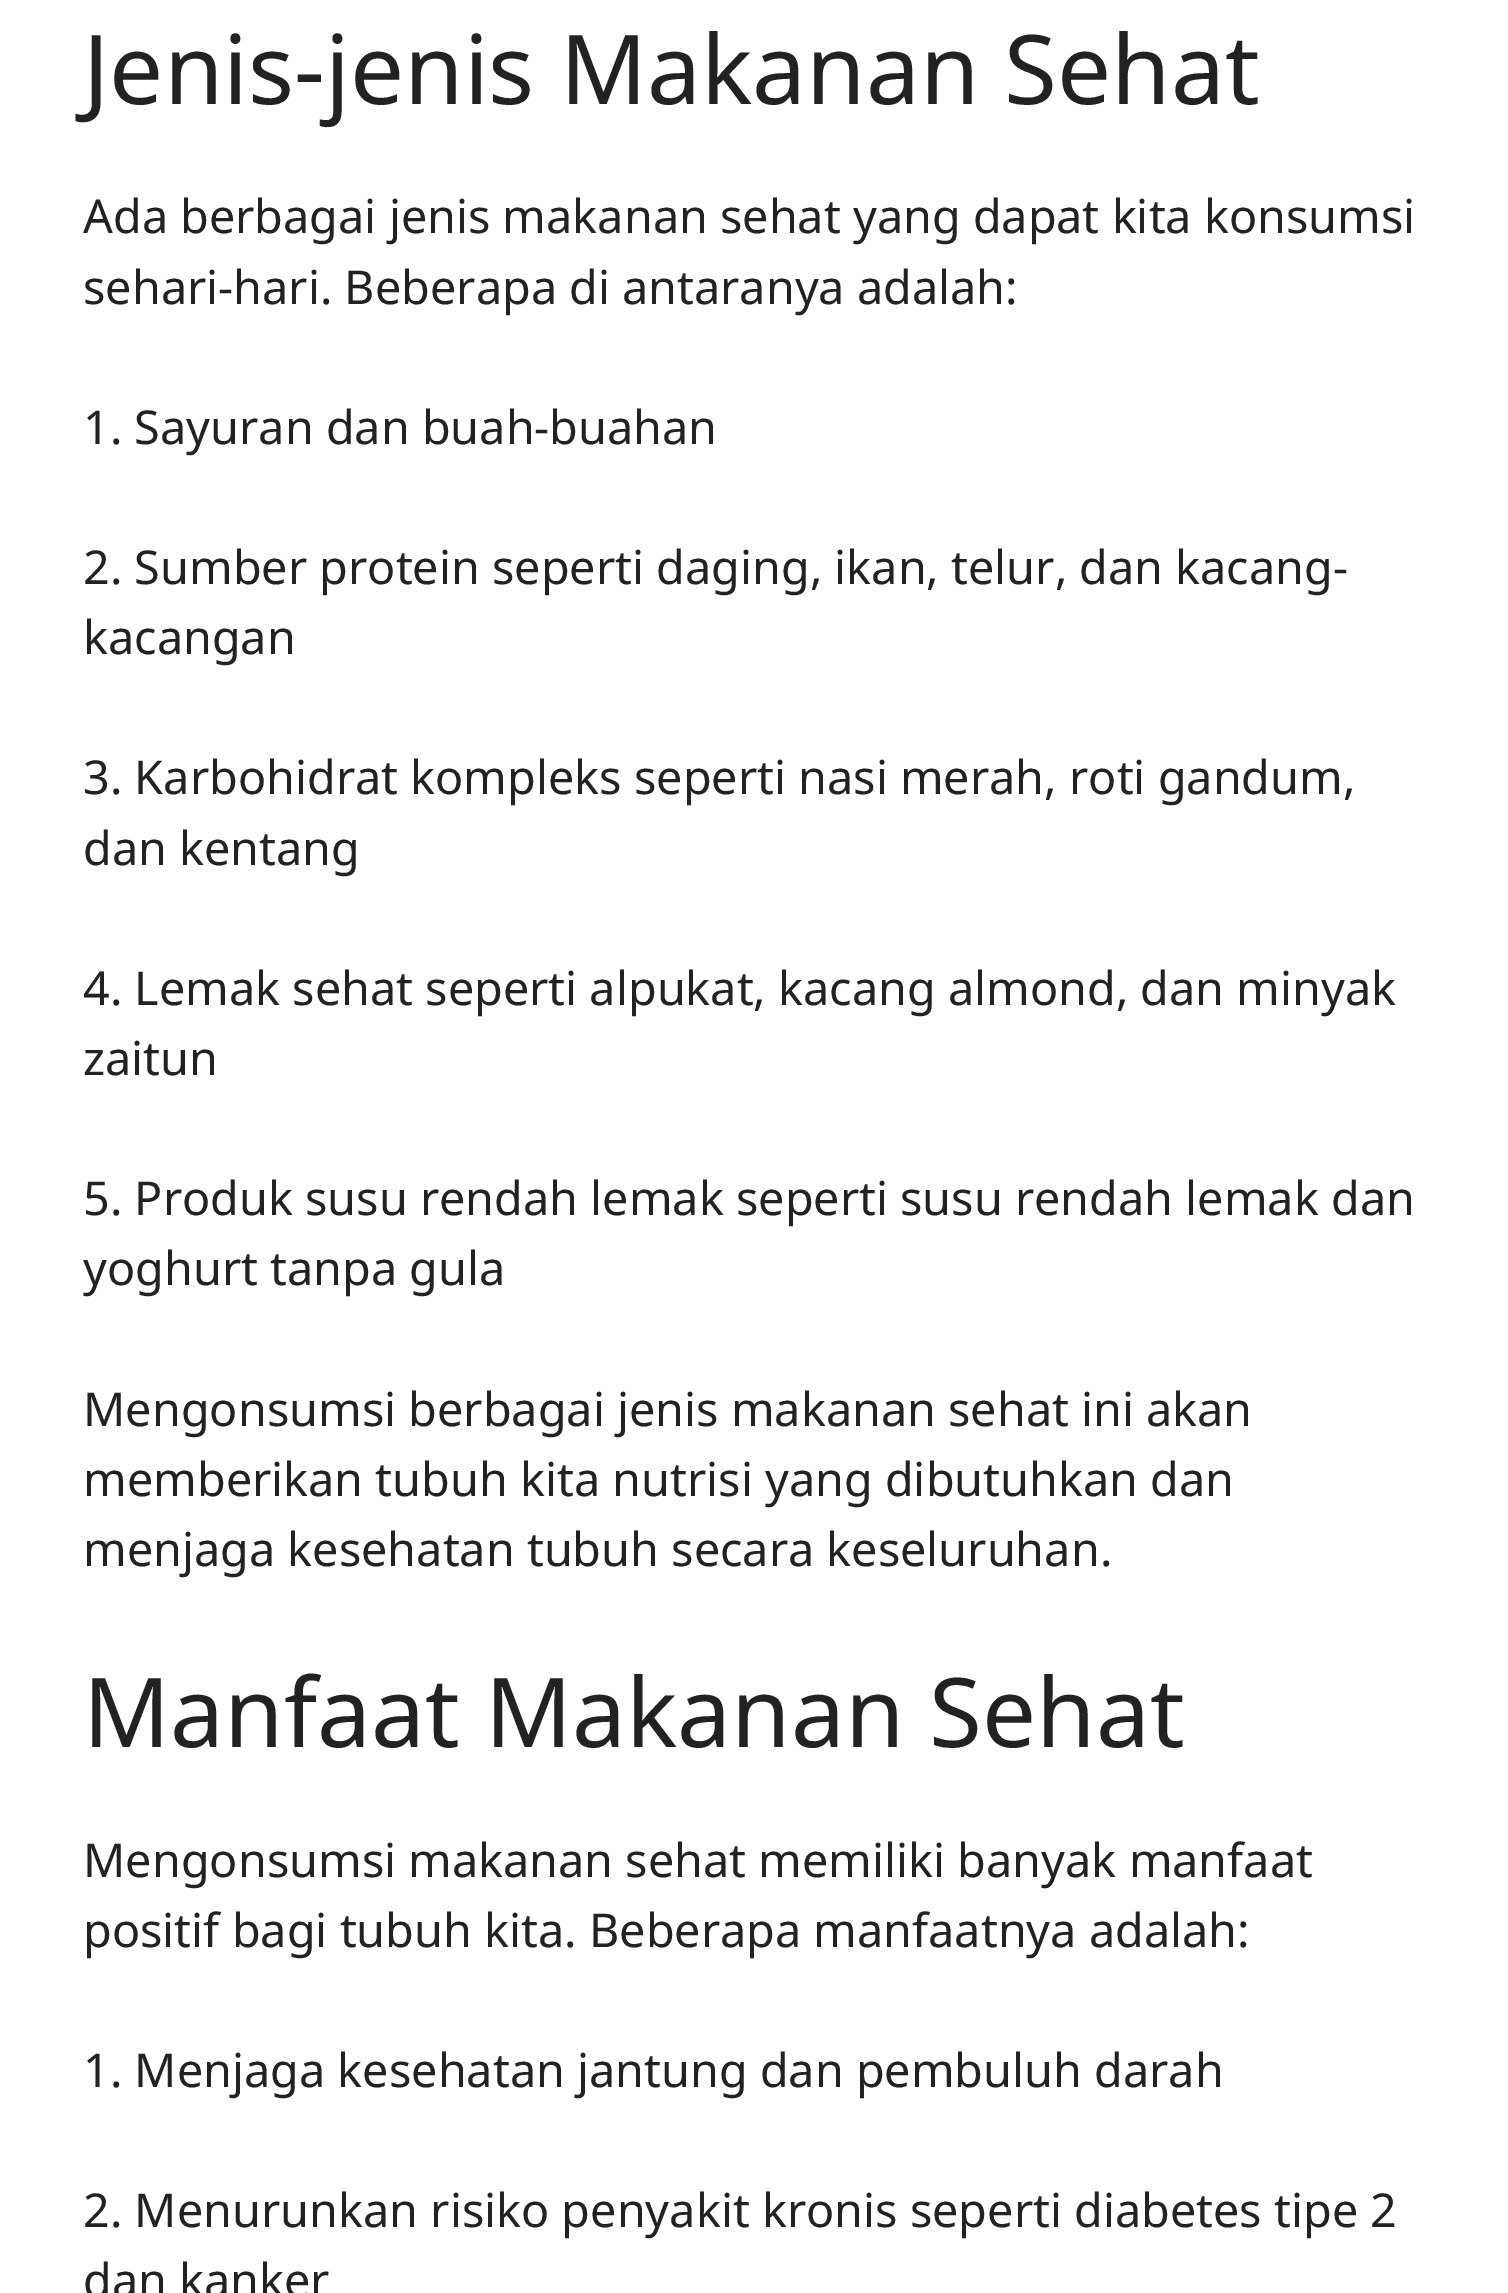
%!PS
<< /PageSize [1508 2293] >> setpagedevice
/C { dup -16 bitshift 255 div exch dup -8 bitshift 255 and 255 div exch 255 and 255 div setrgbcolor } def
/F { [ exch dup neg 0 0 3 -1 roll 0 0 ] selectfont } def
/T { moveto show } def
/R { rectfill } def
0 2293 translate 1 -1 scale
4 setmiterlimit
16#FFFFFF C
0 0 1508 2293 R
/NotoSans-Regular 96.25 F
16#222222 C
(Jenis-jenis Makanan Sehat) 83 104 T
/NotoSans-Regular 46.75 F
(Ada berbagai jenis makanan sehat yang dapat kita konsumsi) 83 233 T
(sehari-hari. Beberapa di antaranya adalah:) 83 304 T
(1. Sayuran dan buah-buahan) 83 444 T
(2. Sumber protein seperti daging, ikan, telur, dan kacang-) 83 584 T
(kacangan) 83 654 T
(3. Karbohidrat kompleks seperti nasi merah, roti gandum,) 83 794 T
(dan kentang) 83 865 T
(4. Lemak sehat seperti alpukat, kacang almond, dan minyak) 83 1005 T
(zaitun) 83 1075 T
(5. Produk susu rendah lemak seperti susu rendah lemak dan) 83 1215 T
(yoghurt tanpa gula) 83 1285 T
(Mengonsumsi berbagai jenis makanan sehat ini akan) 83 1426 T
(memberikan tubuh kita nutrisi yang dibutuhkan dan) 83 1496 T
(menjaga kesehatan tubuh secara keseluruhan.) 83 1566 T
/NotoSans-Regular 96.25 F
(Manfaat Makanan Sehat) 83 1747 T
/NotoSans-Regular 46.75 F
(Mengonsumsi makanan sehat memiliki banyak manfaat) 83 1877 T
(positif bagi tubuh kita. Beberapa manfaatnya adalah:) 83 1947 T
(1. Menjaga kesehatan jantung dan pembuluh darah) 83 2087 T
(2. Menurunkan risiko penyakit kronis seperti diabetes tipe 2) 83 2227 T
(dan kanker) 83 2297 T
showpage
